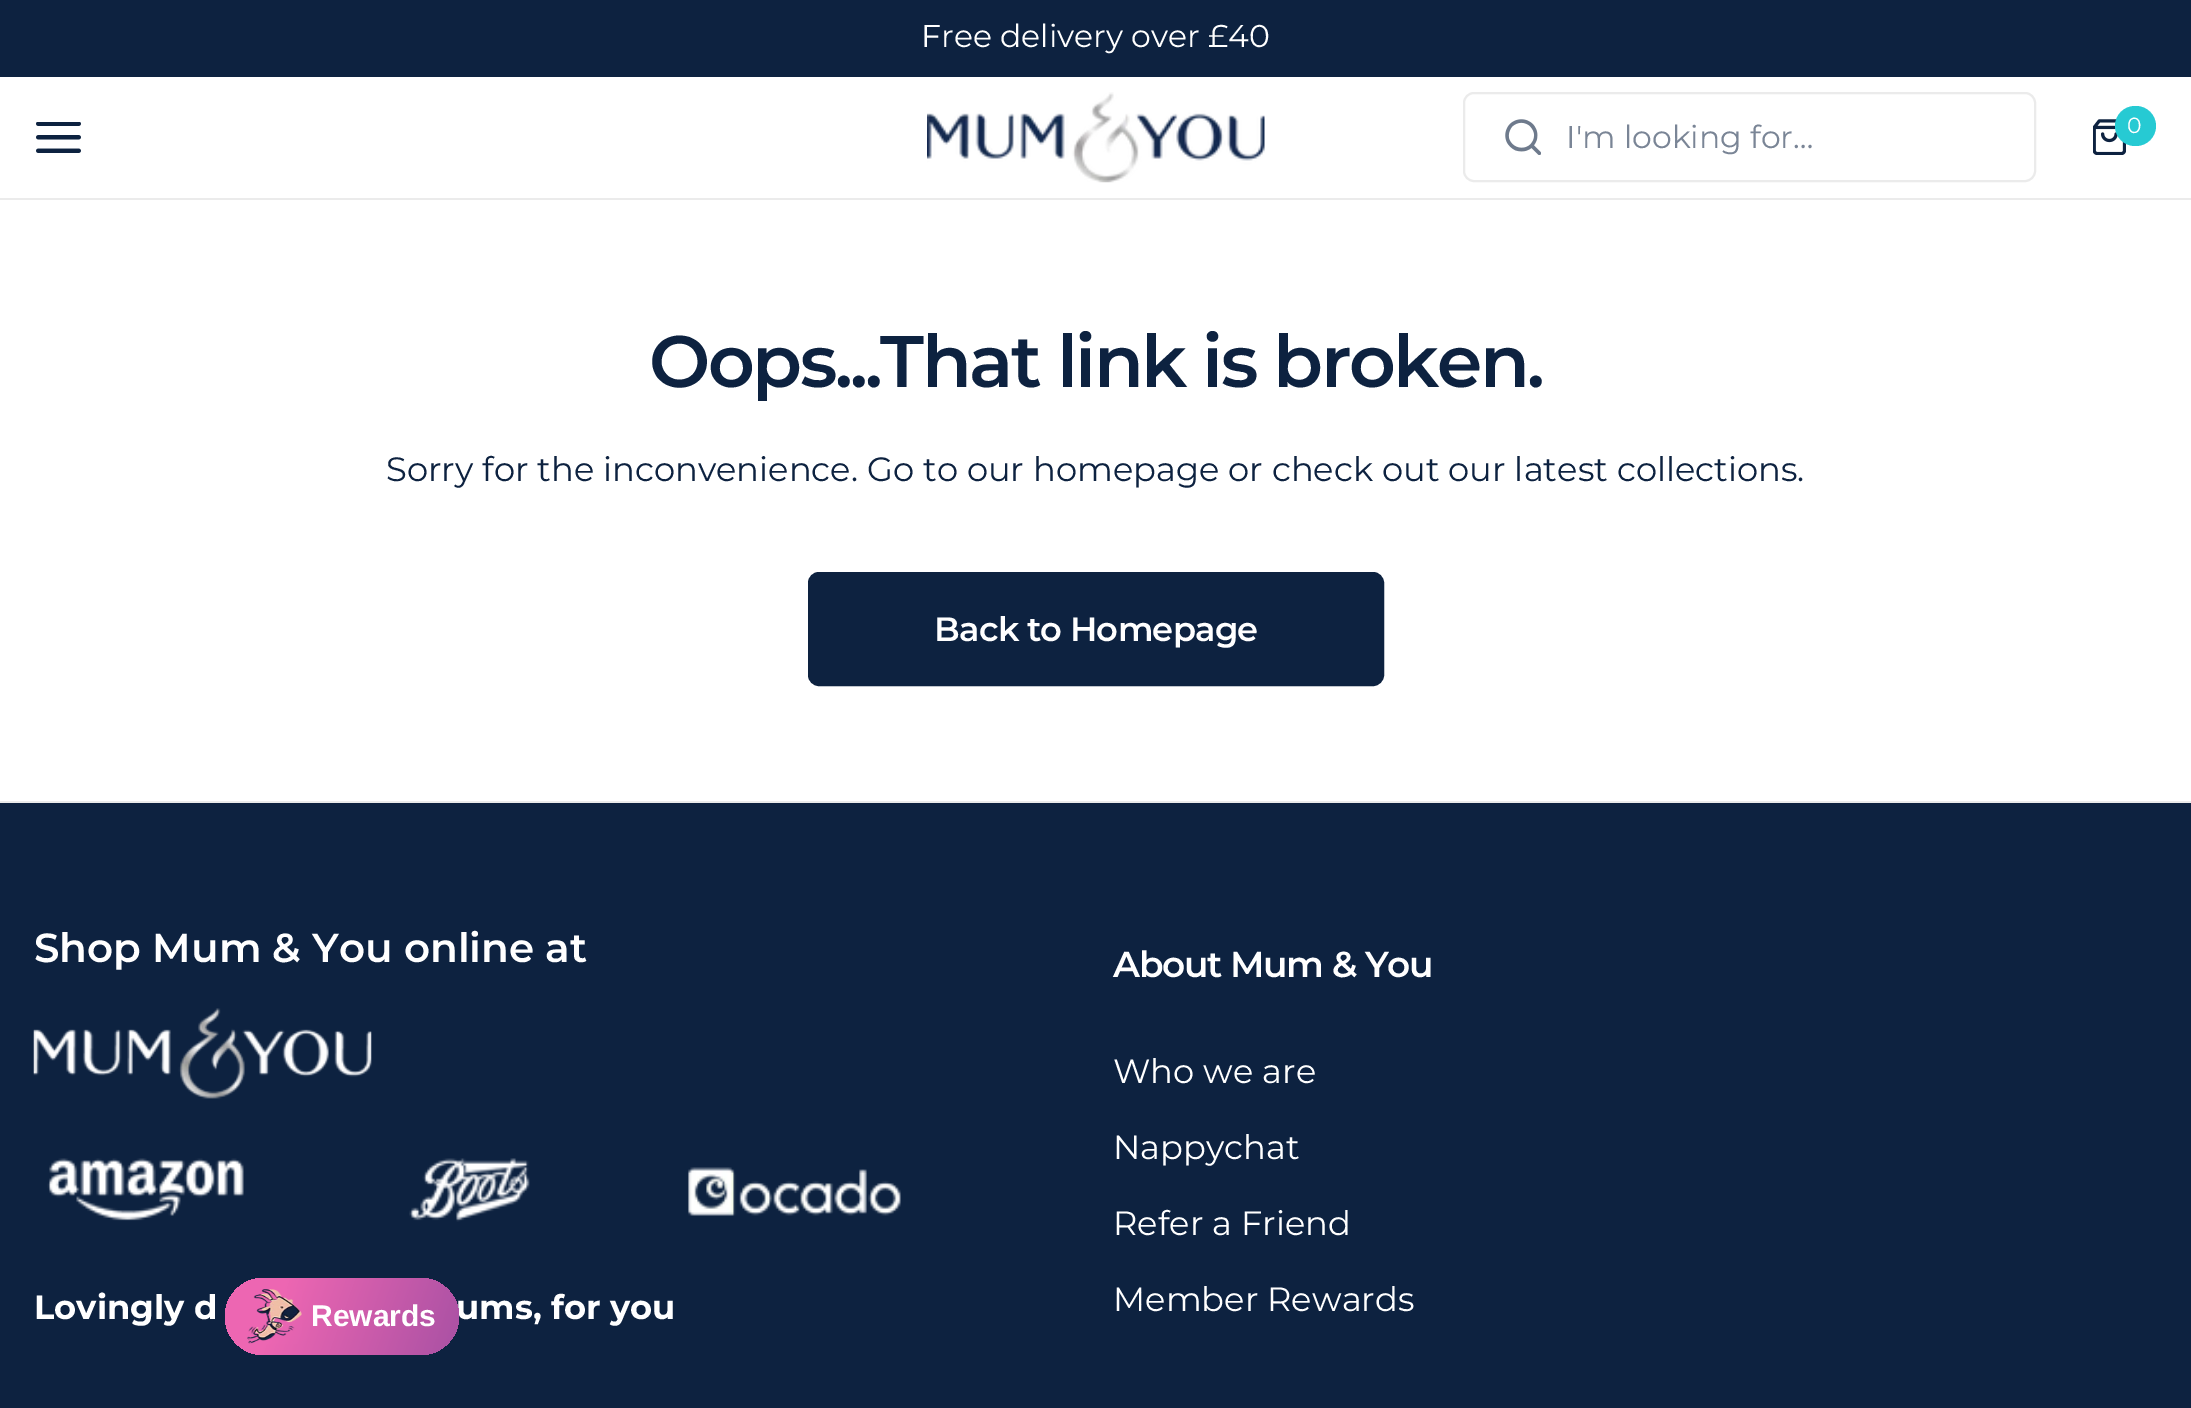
%!PS
<< /PageSize [2191 1408] >> setpagedevice
/m/moveto load def
/f/fill load def
/s/stroke load def
/q/gsave load def
/Q_/grestore load def
/w/setlinewidth load def
/C { dup -16 bitshift 255 div exch dup -8 bitshift 255 and 255 div exch 255 and 255 div setrgbcolor } def
/F { [ exch dup neg 0 0 3 -1 roll 0 0 ] selectfont } def
/T { moveto show } def
/R { rectfill } def
/Q { 5 dict begin { /r /h /w /y /x } { exch def } forall
  x r add y moveto x w add y 2 copy h add r arct x w add y h add x 1 index r arct
  x y h add x y r arct x y 2 copy exch w add exch r arct closepath end } def
/I { 5 dict begin { /h /w /y /x /name } { exch def } forall
  gsave x y translate w h scale
  w h 8 [w 0 0 h 0 0] name (r) file false 3 colorimage grestore end } def
0 1408 translate 1 -1 scale
4 setmiterlimit
16#FFFFFF C
0 0 2191 1408 R
16#0D2240 C
0 0 2191 77 R
/Montserrat-Regular 31.5 F
16#FFFFFF C
(Free delivery over £40) 921 47 T
16#EBEBEB C
0 198 2191 2 R
(1.rgb) 36 122 45 31 I
(2.rgb) 927 92 338 91 I
2 w
1464 93 571 88 10 Q s
(3.rgb) 1505 119 36 36 I
16#7A8596 C
(I'm looking for…) 1566 148 T
(4.rgb) 2093 119 33 36 I
16#26CAD3 C
2115 106 41 40 20 Q f
/Montserrat-Regular 22 F
16#FFFFFF C
(0) 2127 133 T
/Montserrat-SemiBold 72.75 F
16#0D2240 C
649 387 m -2.5 0 (Oops...That link is broken.) ashow
/Montserrat-Regular 33.75 F
(Sorry for the inconvenience. Go to our homepage or check out our latest collections.) 386 481 T
809 573 574 112 10 Q q f Q_
s
/Montserrat-SemiBold 33.75 F
16#FFFFFF C
934 641 m -.75 0 (Back to Homepage) ashow
16#0D2240 C
0 803 2191 605 R
16#EBEBEB C
0 801 2191 2 R
/Montserrat-SemiBold 40.5 F
16#FFFFFF C
(Shop Mum & You online at) 34 962 T
(5.rgb) 33 1008 339 91 I
(6.rgb) 47 1158 197 63 I
(7.rgb) 409 1158 121 64 I
(8.rgb) 688 1167 213 49 I
/Montserrat-Bold 33.75 F
(Lovingly d) 34 1319 T
(ums, for you) 456 1319 T
/Montserrat-SemiBold 36 F
1113 977 m -1.25 0 (About Mum & You) ashow
/Montserrat-Regular 33.75 F
(Who we are) 1113 1083 T
(Nappychat) 1113 1159 T
(Refer a Friend) 1113 1235 T
(Member Rewards) 1113 1311 T
q 225 1278 234 77 38.5 Q clip newpath
<< /ShadingType 2 /ColorSpace /DeviceRGB /Coords [226 1275 551 1390] /Extend [true true] /Function << /FunctionType 3 /Domain [0 1] /Functions [<< /FunctionType 2 /Domain [0 1] /C0 [.929 .4 .698] /C1 [.929 .4 .698] /N 1 >> << /FunctionType 2 /Domain [0 1] /C0 [.929 .4 .698] /C1 [.525 .275 .612] /N 1 >>] /Bounds [.17] /Encode [0 1 0 1] >> >> shfill Q_
(9.rgb) 247 1289 55 55 I
/LiberationSans-Bold 30 F
(Rewards) 311 1326 T
showpage
